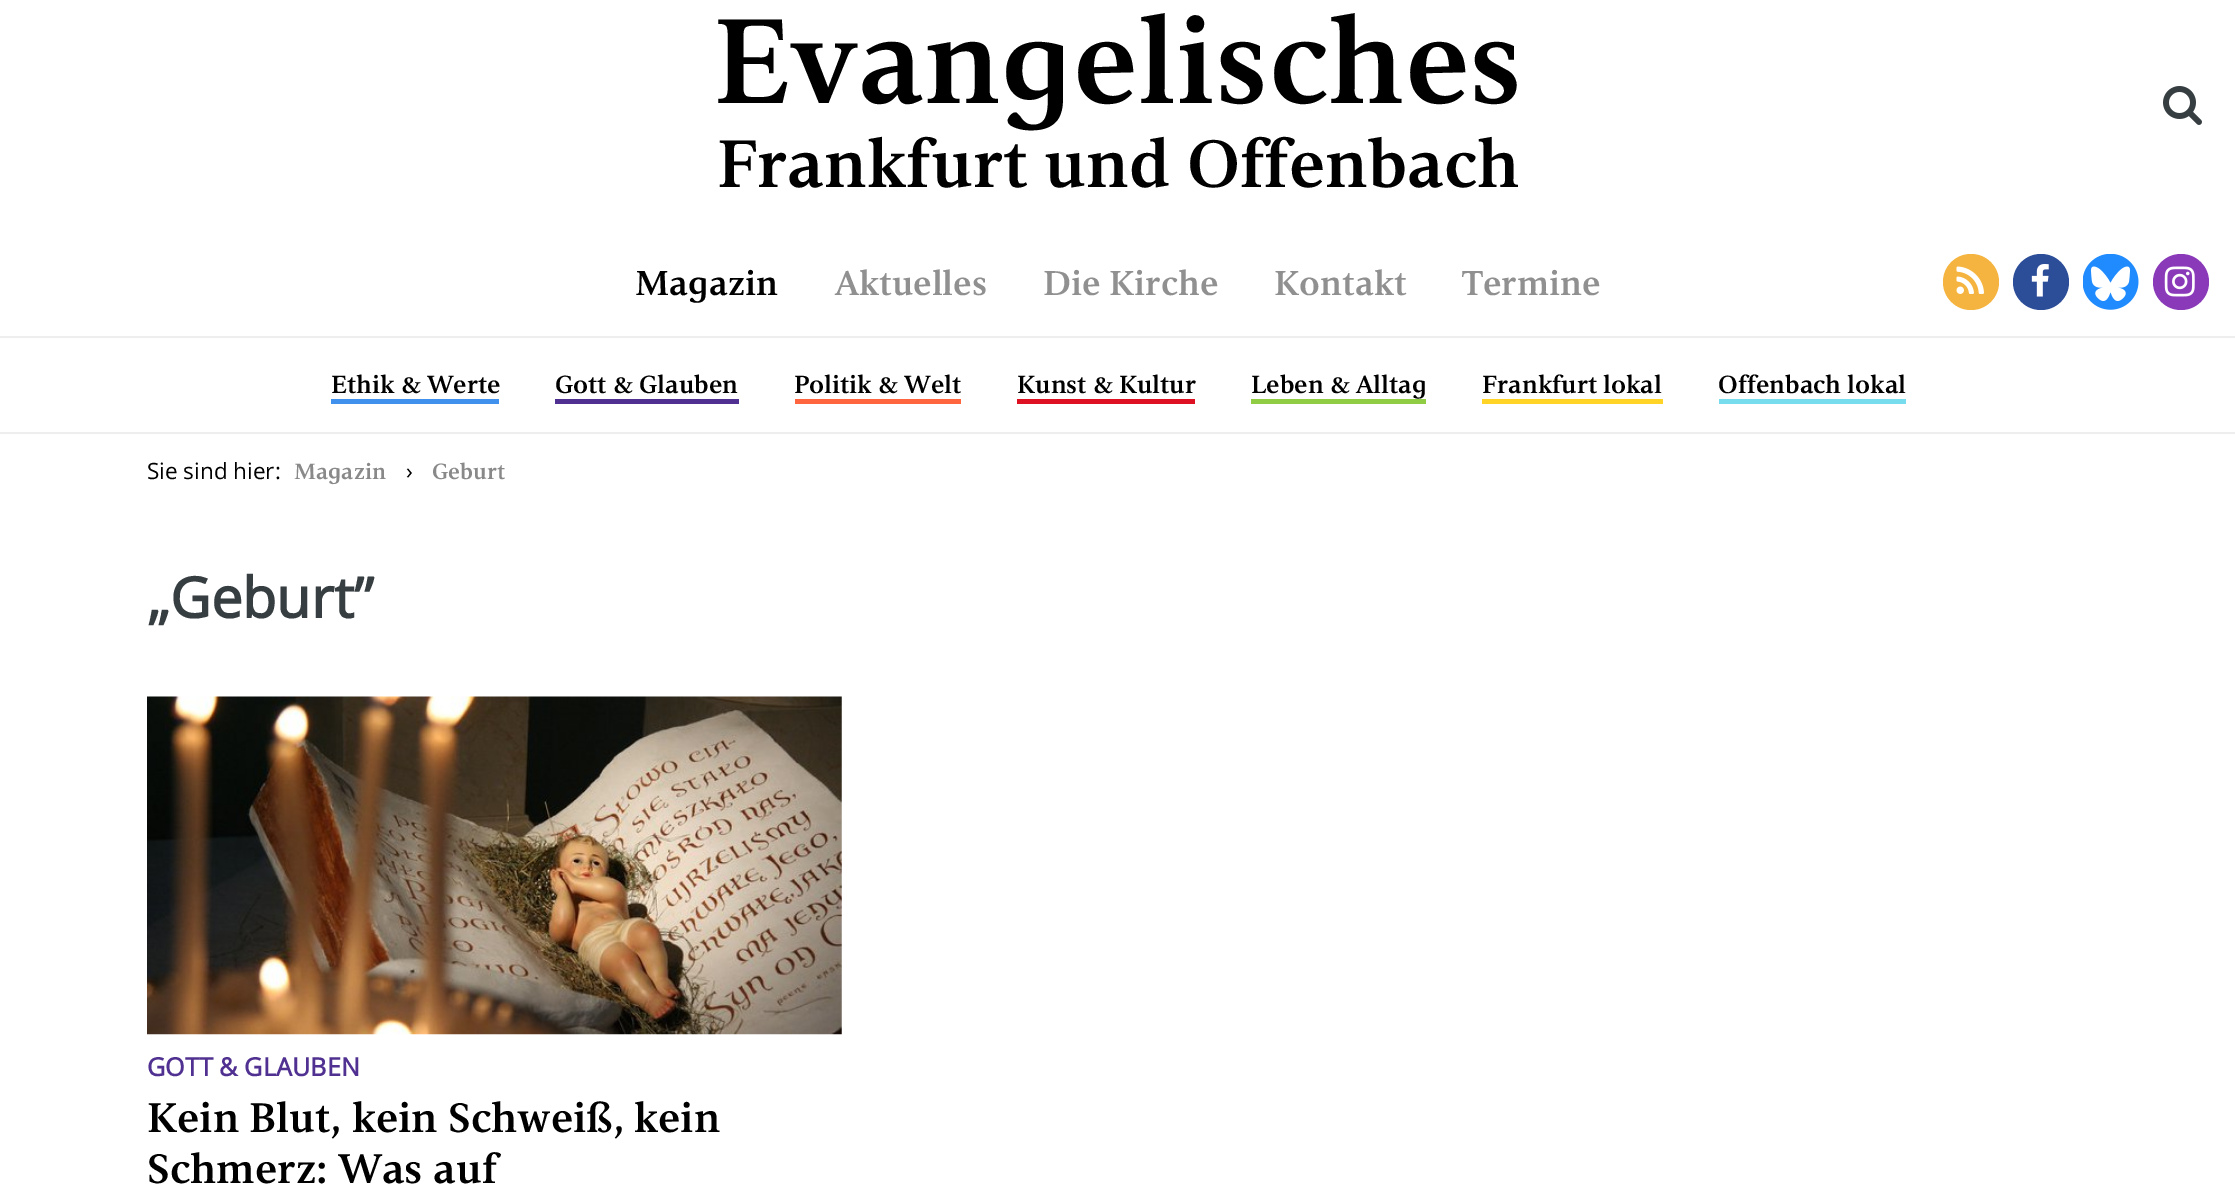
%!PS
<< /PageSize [2235 1195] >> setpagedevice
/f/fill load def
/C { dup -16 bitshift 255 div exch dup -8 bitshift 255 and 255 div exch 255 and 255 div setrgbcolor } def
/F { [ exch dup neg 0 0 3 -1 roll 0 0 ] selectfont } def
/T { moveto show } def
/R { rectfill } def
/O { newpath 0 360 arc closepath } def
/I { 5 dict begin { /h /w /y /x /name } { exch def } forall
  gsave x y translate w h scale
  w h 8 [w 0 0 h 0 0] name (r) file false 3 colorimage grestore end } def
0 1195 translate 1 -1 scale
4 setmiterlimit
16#FFFFFF C
0 0 2235 1195 R
/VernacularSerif-SemiBold 122.5 F
16#000000 C
(Evangelisches) 713 103 T
/VernacularSerif-SemiBold 68.25 F
(Frankfurt und Offenbach) 717 187 T
(1.rgb) 2163 86 39 39 I
16#EEEEEE C
0 336 2235 2 R
/VernacularSerif-SemiBold 35 F
16#000000 C
(Magazin) 635 295 T
16#909090 C
(Aktuelles) 835 295 T
(Die Kirche) 1043 295 T
(Kontakt) 1274 295 T
(Termine) 1462 295 T
16#F5B43F C
1971 282 28 O f
(2.rgb) 1956 266 28 28 I
16#2C4D98 C
2041 282 28 O f
(3.rgb) 2031 264 18 33 I
(4.rgb) 2083 254 56 56 I
16#8A3AB9 C
2181 282 28 O f
(5.rgb) 2164 266 31 31 I
16#EEEEEE C
0 432 2235 2 R
/VernacularSerif-SemiBold 25.25 F
16#000000 C
(Ethik & Werte) 331 393 T
16#4090EE C
331 399 168 5 R
16#000000 C
(Gott & Glauben) 555 393 T
16#503090 C
555 399 184 5 R
16#000000 C
(Politik & Welt) 794 393 T
16#FF6640 C
795 399 166 5 R
16#000000 C
(Kunst & Kultur) 1017 393 T
16#DD1122 C
1017 399 178 5 R
16#000000 C
(Leben & Alltag) 1251 393 T
16#90CC44 C
1251 399 175 5 R
16#000000 C
(Frankfurt lokal) 1482 393 T
16#FFD426 C
1482 399 181 5 R
16#000000 C
(Offenbach lokal) 1718 393 T
16#77DDEE C
1719 399 187 5 R
/OpenSans-Regular 22.5 F
16#000000 C
(Sie sind hier:) 147 479 T
/VernacularSerif-SemiBold 22.5 F
16#898989 C
(Magazin) 294 479 T
/OpenSans-Regular 22.5 F
16#000000 C
(›) 406 479 T
/VernacularSerif-SemiBold 22.5 F
16#898989 C
(Geburt) 432 479 T
/OpenSans-Bold 56 F
16#363E41 C
(„Geburt”) 147 618 T
(6.rgb) 147 696 695 339 I
/OpenSans-Bold 25.25 F
16#503090 C
(GOTT & GLAUBEN) 147 1076 T
/VernacularSerif-SemiBold 42 F
16#000000 C
(Kein Blut, kein Schweiß, kein) 147 1132 T
(Schmerz: Was auf) 147 1183 T
showpage
